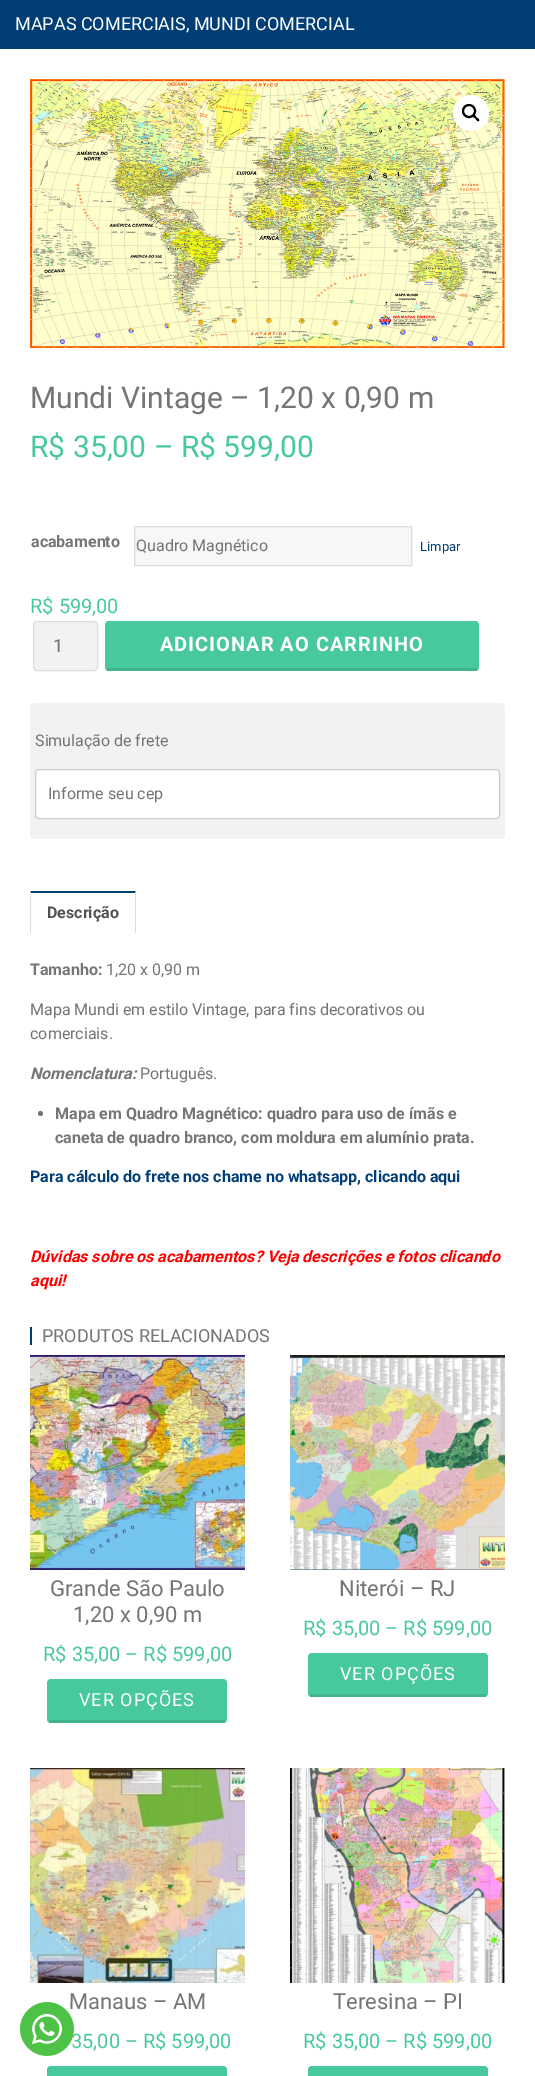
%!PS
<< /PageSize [535 2076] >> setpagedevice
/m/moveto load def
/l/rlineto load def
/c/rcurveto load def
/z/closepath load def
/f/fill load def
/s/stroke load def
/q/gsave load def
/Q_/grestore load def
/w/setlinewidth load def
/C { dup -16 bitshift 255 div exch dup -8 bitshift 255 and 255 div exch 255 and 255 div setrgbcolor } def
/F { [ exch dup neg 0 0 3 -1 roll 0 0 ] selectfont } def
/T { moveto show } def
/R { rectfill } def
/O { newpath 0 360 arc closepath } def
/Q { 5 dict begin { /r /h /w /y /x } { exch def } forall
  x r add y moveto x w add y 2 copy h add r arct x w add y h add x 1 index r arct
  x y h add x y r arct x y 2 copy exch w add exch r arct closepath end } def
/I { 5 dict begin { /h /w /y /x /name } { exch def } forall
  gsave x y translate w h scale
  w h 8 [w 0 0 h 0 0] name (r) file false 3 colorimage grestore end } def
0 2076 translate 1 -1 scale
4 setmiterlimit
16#FFFFFF C
0 0 535 2076 R
16#003E75 C
0 0 535 49 R
/Roboto-Regular 18 F
16#FFFFFF C
(MAPAS COMERCIAIS, MUNDI COMERCIAL) 15 30 T
(1.rgb) 30 79 475 269 I
471 113 18 O f
16#000000 C
2 w
469 111 6 O s
473 115 m 1.5 -1 3 1.5 3.5 2.5 c 1 .5 3.5 2 2.5 3.5 c -1.5 1 -3 -1.5 -3.5 -2.5 c -1 -.5 -3.5 -2 -2.5 -3.5 c z f
/Roboto-Regular 30 F
16#757575 C
(Mundi Vintage – 1,20 x 0,90 m) 30 408 T
16#48C89E C
(R$ 35,00 – R$ 599,00) 30 457 T
/Roboto-Bold 16 F
16#757575 C
(acabamento) 31 547 T
16#F5F7F9 C
134.5 526.5 m 277 0 l 0 39 l -277 0 l z q f Q_
16#D9DDDF C
1 w
s
/Roboto-Regular 16 F
16#757575 C
(Quadro Magnético) 136 551 T
/Roboto-Regular 13 F
16#003E75 C
(Limpar) 420 551 T
/Roboto-Regular 20 F
16#48C89E C
(R$ 599,00) 30 613 T
16#F2F2F2 C
33.5 621.5 64 49 3.5 Q q f Q_
16#DDDDDD C
s
/Roboto-Regular 18 F
16#757575 C
(1) 53 652 T
16#48C89E C
105 621 374 50 4 Q f
16#41B48E C
107 668 370 3 R
/Roboto-Bold 20 F
16#FFFFFF C
160 651 m 1 0 (ADICIONAR AO CARRINHO) ashow
16#F2F2F2 C
30 703 475 136 5 Q f
/Roboto-Regular 16 F
16#757575 C
(Simulação de frete) 35 746 T
16#FFFFFF C
35.5 769.5 464 49 3.5 Q q f Q_
16#CCCCCC C
s
16#757575 C
(Informe seu cep) 48 799 T
16#003E75 C
30 891 m 106 0 l -1 2 l -104 0 l z f
16#DDDDDD C
136 891 m 0 42 l -1 0 l 0 -40 l z f
30 933 m 0 -42 l 1 2 l 0 40 l z f
/Roboto-Bold 16 F
16#515151 C
(Descrição) 47 918 T
16#757575 C
(Tamanho:) 30 975 T
/Roboto-Regular 16 F
(1,20 x 0,90 m) 106 975 T
(Mapa Mundi em estilo Vintage, para fins decorativos ou) 30 1015 T
(comerciais.) 30 1039 T
/Roboto-BoldItalic 16 F
(Nomenclatura:) 30 1079 T
/Roboto-Regular 16 F
(Português.) 140 1079 T
40.5 1113.5 2.5 O f
/Roboto-Bold 16 F
(Mapa em Quadro Magnético: quadro para uso de ímãs e) 55 1119 T
(caneta de quadro branco, com moldura em alumínio prata.) 55 1143 T
16#003E75 C
(Para cálculo do frete nos chame no whatsapp, clicando aqui) 30 1182 T
/Roboto-BoldItalic 16 F
16#FF0000 C
(Dúvidas sobre os acabamentos? Veja descrições e fotos clicando) 30 1262 T
(aqui!) 30 1286 T
16#003E75 C
30 1327 2 18 R
/Roboto-Regular 18 F
16#757575 C
(PRODUTOS RELACIONADOS) 42 1342 T
(2.rgb) 30 1355 215 215 I
/Roboto-Regular 22 F
(Grande São Paulo) 50 1596 T
(1,20 x 0,90 m) 73 1622 T
/Roboto-Regular 20 F
16#48C89E C
(R$ 35,00 – R$ 599,00) 43 1661 T
47 1679 180 44 4 Q f
16#41B48E C
49 1720 176 3 R
/Roboto-Regular 18 F
16#FFFFFF C
79 1706 m 1 0 (VER OPÇÕES) ashow
(3.rgb) 290 1355 215 215 I
/Roboto-Regular 22 F
16#757575 C
(Niterói – RJ) 339 1596 T
/Roboto-Regular 20 F
16#48C89E C
(R$ 35,00 – R$ 599,00) 303 1635 T
308 1653 180 44 4 Q f
16#41B48E C
310 1694 176 3 R
/Roboto-Regular 18 F
16#FFFFFF C
340 1680 m 1 0 (VER OPÇÕES) ashow
(4.rgb) 30 1768 215 215 I
/Roboto-Regular 22 F
16#757575 C
(Manaus – AM) 69 2009 T
/Roboto-Regular 20 F
16#48C89E C
(35,00 – R$ 599,00) 71 2048 T
47 2066 180 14 4 Q f
(5.rgb) 290 1768 215 215 I
/Roboto-Regular 22 F
16#757575 C
(Teresina – PI) 333 2009 T
/Roboto-Regular 20 F
16#48C89E C
(R$ 35,00 – R$ 599,00) 303 2048 T
308 2066 180 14 4 Q f
(6.rgb) 20 2002 54 54 I
showpage
